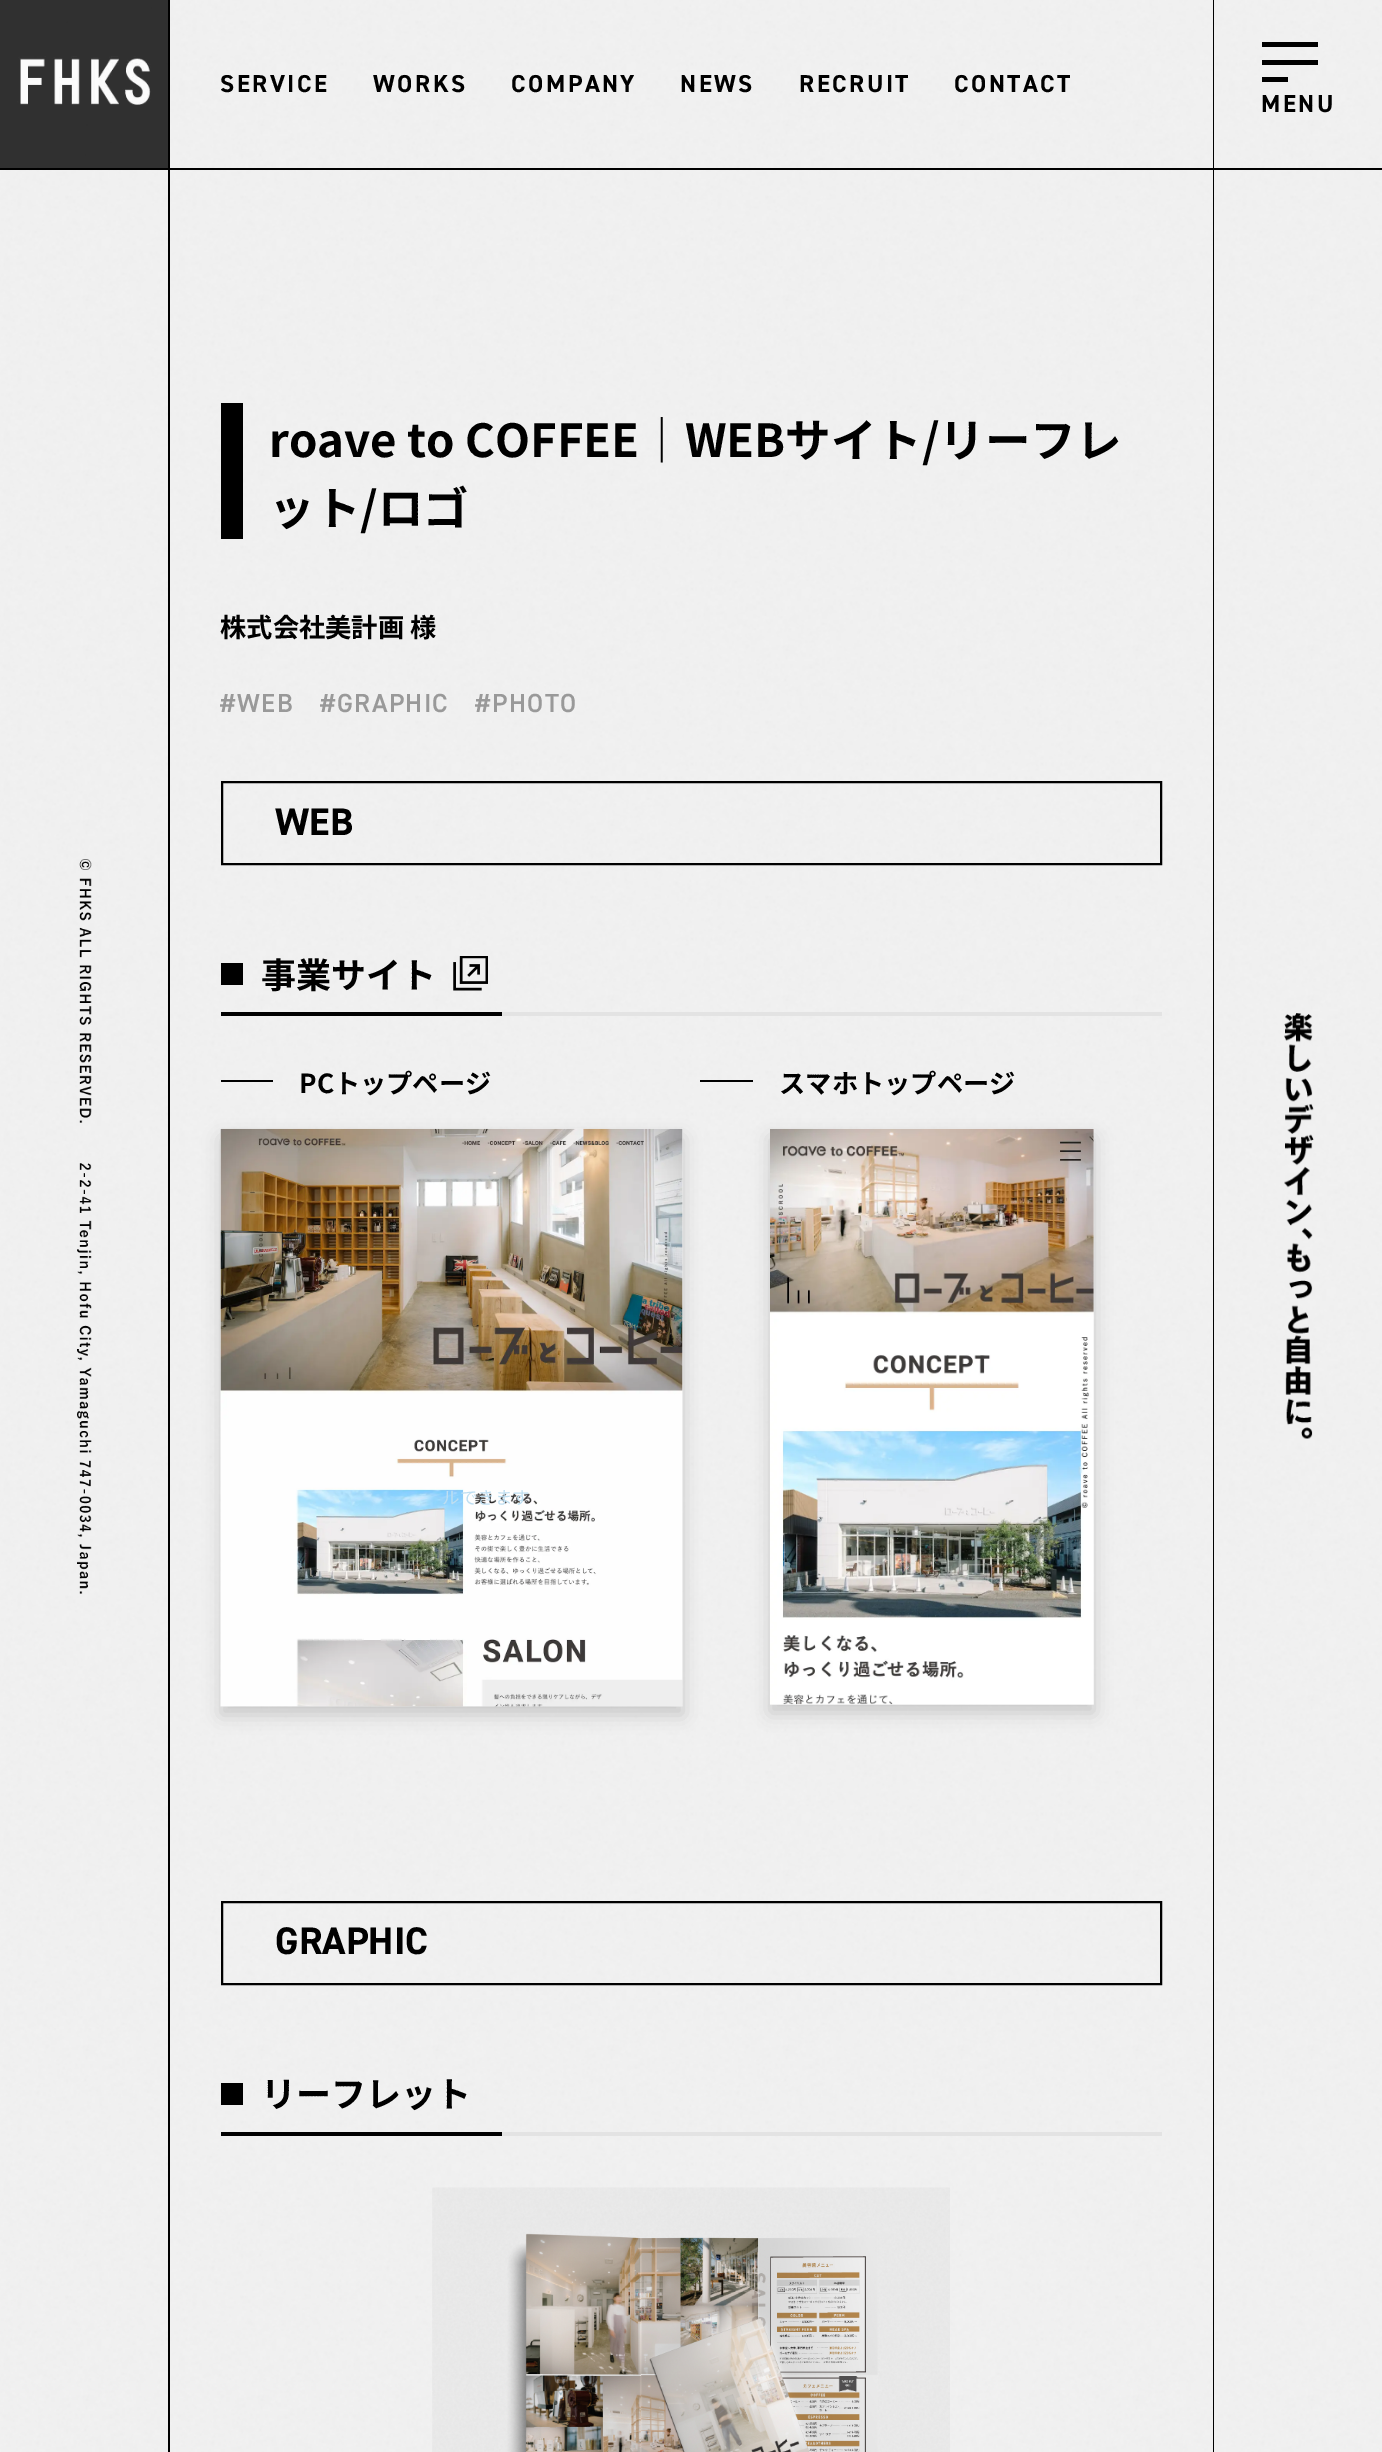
%!PS
<< /PageSize [1382 2452] /PageUsesTransparency true >> setpagedevice
/m/moveto load def
/w/setlinewidth load def
/C { dup -16 bitshift 255 div exch dup -8 bitshift 255 and 255 div exch 255 and 255 div setrgbcolor } def
/F { [ exch dup neg 0 0 3 -1 roll 0 0 ] selectfont } def
/T { moveto show } def
/R { rectfill } def
/A { dup .setfillconstantalpha .setstrokeconstantalpha } def
/Q { 5 dict begin { /r /h /w /y /x } { exch def } forall
  x r add y moveto x w add y 2 copy h add r arct x w add y h add x 1 index r arct
  x y h add x y r arct x y 2 copy exch w add exch r arct closepath end } def
/S { 12 dict begin { /a /b /q /h /w /y /x } { exch def } forall gsave /was 0 def
  9 -2 -9 { dup b mul 4 div /e exch def 1 sub .425 mul 2.718 exch exp 1 add a .99 .min exch div /now exch def
    1 1 now sub 1 was sub div sub A /was now def
    w h .min e 2 mul add 0 gt { x e sub y e sub w e 2 mul add h e 2 mul add
      q e add b .6 mul add w h .min 2 div e add .min 0 .max Q fill } if } for grestore end } def
/I { 5 dict begin { /h /w /y /x /name } { exch def } forall
  gsave x y translate w h scale
  w h 8 [w 0 0 h 0 0] name (r) file false 3 colorimage grestore end } def
0 .pushpdf14devicefilter
0 2452 translate 1 -1 scale
4 setmiterlimit
16#FFFFFF C
0 0 1382 2452 R
(1.rgb) 0 0 1382 2452 I
(2.rgb) 0 0 168 168 I
(3.rgb) 77 859 15 735 I
16#000000 C
168 0 2 2452 R
/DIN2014-Bold 24.5 F
220 92 m 2.5 0 (SERVICE) ashow
373 92 m 2.5 0 (WORKS) ashow
511 92 m 2.5 0 (COMPANY) ashow
680 92 m 2.5 0 (NEWS) ashow
799 92 m 2.5 0 (RECRUIT) ashow
954 92 m 2.5 0 (CONTACT) ashow
1213 0 1 2452 R
0 168 1382 2 R
(4.rgb) 1284 1013 30 426 I
1262 42 56 5 R
1262 60 56 5 R
1262 77 26 5 R
1261 112 m 2.5 0 (MENU) ashow
221 403 22 136 R
/NotoSansJP-Bold 45.5 F
(roave to COFFEE｜WEBサイト/リーフレ) 269 457 T
(ット/ロゴ) 269 525 T
/NotoSansJP-Bold 26.25 F
(株式会社美計画 様) 220 637 T
/DIN2014-SemiBold 26.25 F
16#999999 C
220 712 m 1.25 0 (#WEB) ashow
320 712 m 1.25 0 (#GRAPHIC) ashow
475 712 m 1.25 0 (#PHOTO) ashow
16#000000 C
2 w
222 782 939 82 rectstroke
/DIN2014-Bold 38.5 F
(WEB) 275 835 T
221 963 22 22 R
/NotoSansJP-Bold 35 F
(事業サイト) 261 988 T
(5.rgb) 453 956 35 35 I
221 1012 281 4 R
16#E3E3E3 C
502 1012 660 4 R
16#000000 C
221 1080 52 2 R
/NotoSansJP-Bold 26.25 F
(PCトップページ) 299 1093 T
221 1138 462 577 0 9 .16 S
(6.rgb) 220 1128 463 579 I
/NotoSansJP-Regular 17.5 F
16#BEDEF1 C
(ルできます) 442 1504 T
16#000000 C
700 1080 53 2 R
/NotoSansJP-Bold 26.25 F
(スマホトップページ) 779 1093 T
770 1138 324 575 0 9 .16 S
(7.rgb) 770 1128 324 577 I
222 1902 939 82 rectstroke
/DIN2014-Bold 38.5 F
(GRAPHIC) 275 1954 T
221 2083 22 22 R
/NotoSansJP-Bold 35 F
(リーフレット) 261 2107 T
221 2132 281 4 R
16#E3E3E3 C
502 2132 660 4 R
(8.rgb) 432 2187 518 265 I
.poppdf14devicefilter showpage
